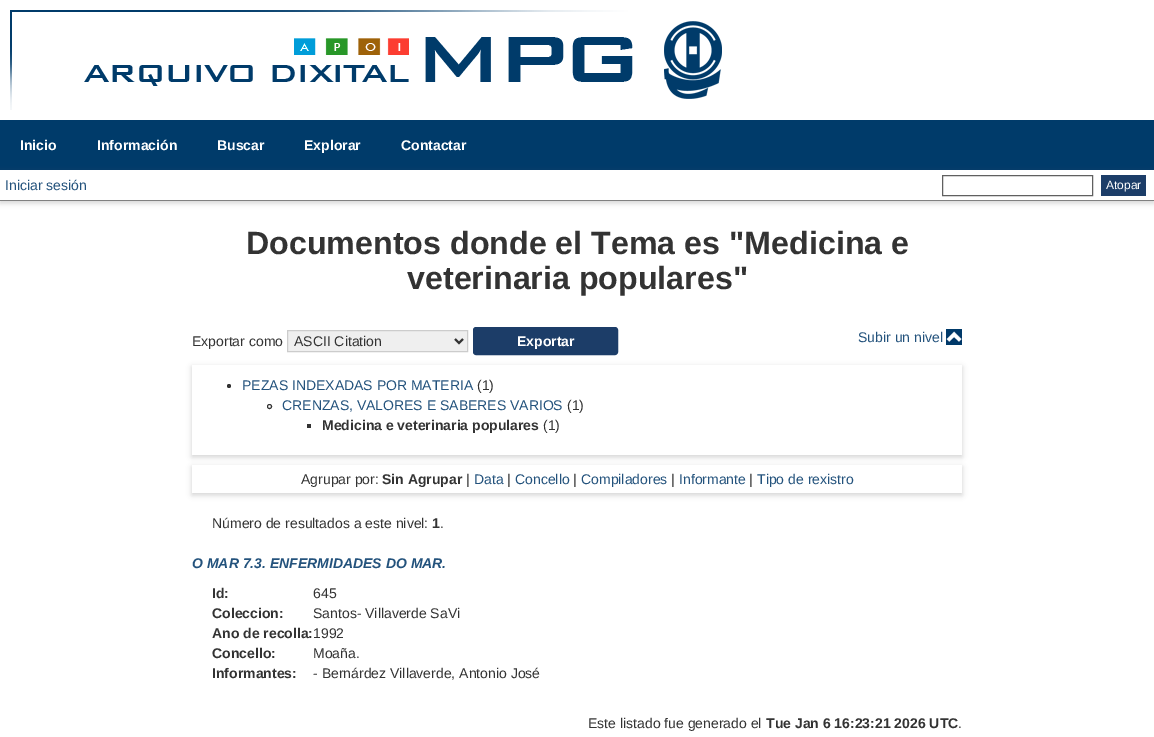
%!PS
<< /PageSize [1154 737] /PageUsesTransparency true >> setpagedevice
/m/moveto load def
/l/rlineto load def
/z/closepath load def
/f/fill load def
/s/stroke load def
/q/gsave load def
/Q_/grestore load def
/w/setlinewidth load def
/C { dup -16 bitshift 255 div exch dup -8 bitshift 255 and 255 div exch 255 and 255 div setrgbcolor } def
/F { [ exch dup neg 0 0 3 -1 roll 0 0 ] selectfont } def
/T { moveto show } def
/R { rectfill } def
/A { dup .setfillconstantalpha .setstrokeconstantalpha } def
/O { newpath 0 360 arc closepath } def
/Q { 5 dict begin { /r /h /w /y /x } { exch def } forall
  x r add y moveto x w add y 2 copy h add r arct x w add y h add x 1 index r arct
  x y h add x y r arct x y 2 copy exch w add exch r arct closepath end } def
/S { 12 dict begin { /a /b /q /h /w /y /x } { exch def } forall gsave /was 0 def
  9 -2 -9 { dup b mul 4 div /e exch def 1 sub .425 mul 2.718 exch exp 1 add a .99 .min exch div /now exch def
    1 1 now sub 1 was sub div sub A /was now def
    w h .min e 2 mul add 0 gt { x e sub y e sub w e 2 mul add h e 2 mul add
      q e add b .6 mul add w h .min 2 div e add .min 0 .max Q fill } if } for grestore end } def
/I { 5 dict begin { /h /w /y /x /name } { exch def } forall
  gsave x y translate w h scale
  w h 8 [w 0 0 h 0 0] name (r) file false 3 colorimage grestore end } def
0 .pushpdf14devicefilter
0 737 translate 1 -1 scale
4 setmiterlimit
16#FFFFFF C
0 0 1154 737 R
(1.rgb) 10 10 712 100 I
16#003B6A C
0 120 1154 50 R
/LiberationSans-Bold 14 F
16#FFFFFF C
(Inicio) 20 150 T
(Información) 97 150 T
(Buscar) 217 150 T
(Explorar) 304 150 T
(Contactar) 401 150 T
q
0 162 m 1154 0 l 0 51 l -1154 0 l z 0 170 m 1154 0 l 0 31 l -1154 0 l z eoclip newpath
16#646464 C
0 172 1154 31 0 3 .3 S
Q_
16#808080 C
0 200 1154 1 R
/LiberationSans-Regular 14 F
16#23527C C
(Iniciar sesión) 5 190 T
16#606060 C
942.5 175.5 150 20 rectstroke
16#1C3D68 C
1101 175 45 21 R
/LiberationSans-Regular 12 F
16#FFFFFF C
(Atopar) 1106 189 T
/LiberationSans-Bold 32.2 F
16#333333 C
(Documentos donde el Tema es "Medicina e) 246 254 T
(veterinaria populares") 407 289 T
/LiberationSans-Regular 14 F
(Exportar como) 192 346 T
16#EFEFEF C
287.5 330.5 m 180 0 l 0 21 l -180 0 l z q f Q_
16#CCCCCC C
s
16#333333 C
2 w
455 339 m 4 4 l 4 -4 l s
(ASCII Citation) 294 346 T
16#1C3D68 C
474 328 143 26 2 Q q f Q_
s
/LiberationSans-Bold 14 F
16#FFFFFF C
(Exportar) 517 346 T
/LiberationSans-Regular 14 F
16#23527C C
(Subir un nivel) 858 342 T
(2.rgb) 946 329 16 16 I
q
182 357 m 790 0 l 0 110 l -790 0 l z 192 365 m 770 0 l 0 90 l -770 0 l z eoclip newpath
16#646464 C
192 367 770 90 0 3 .3 S
Q_
16#333333 C
229 386 2 O f
16#23527C C
(PEZAS INDEXADAS POR MATERIA) 242 390 T
16#333333 C
(\(1\)) 477 390 T
1 w
269.5 406.5 2 O s
16#23527C C
(CRENZAS, VALORES E SABERES VARIOS) 282 410 T
16#333333 C
(\(1\)) 567 410 T
307 424 4 4 R
/LiberationSans-Bold 14 F
(Medicina e veterinaria populares) 322 430 T
/LiberationSans-Regular 14 F
(\(1\)) 543 430 T
q
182 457 m 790 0 l 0 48 l -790 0 l z 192 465 m 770 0 l 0 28 l -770 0 l z eoclip newpath
16#646464 C
192 467 770 28 0 3 .3 S
Q_
(Agrupar por:) 301 484 T
/LiberationSans-Bold 14 F
(Sin Agrupar) 382 484 T
/LiberationSans-Regular 14 F
(|) 466 484 T
16#23527C C
(Data) 474 484 T
16#333333 C
(|) 507 484 T
16#23527C C
(Concello) 515 484 T
16#333333 C
(|) 573 484 T
16#23527C C
(Compiladores) 581 484 T
16#333333 C
(|) 671 484 T
16#23527C C
(Informante) 679 484 T
16#333333 C
(|) 749 484 T
16#23527C C
(Tipo de rexistro) 757 484 T
16#333333 C
(Número de resultados a este nivel:) 212 528 T
/LiberationSans-Bold 14 F
(1) 432 528 T
/LiberationSans-Regular 14 F
(.) 440 528 T
/LiberationSans-BoldItalic 14 F
16#23527C C
(O MAR 7.3. ENFERMIDADES DO MAR.) 192 568 T
/LiberationSans-Bold 14 F
16#333333 C
(Id:) 212 598 T
/LiberationSans-Regular 14 F
(645) 313 598 T
/LiberationSans-Bold 14 F
(Coleccion:) 212 618 T
/LiberationSans-Regular 14 F
(Santos- Villaverde SaVi) 313 618 T
/LiberationSans-Bold 14 F
(Ano de recolla:) 212 638 T
/LiberationSans-Regular 14 F
(1992) 313 638 T
/LiberationSans-Bold 14 F
(Concello:) 212 658 T
/LiberationSans-Regular 14 F
(Moaña.) 313 658 T
/LiberationSans-Bold 14 F
(Informantes:) 212 678 T
/LiberationSans-Regular 14 F
(- Bernárdez Villaverde, Antonio José) 313 678 T
(Este listado fue generado el) 588 728 T
/LiberationSans-Bold 14 F
(Tue Jan 6 16:23:21 2026 UTC) 766 728 T
/LiberationSans-Regular 14 F
(.) 958 728 T
.poppdf14devicefilter showpage
